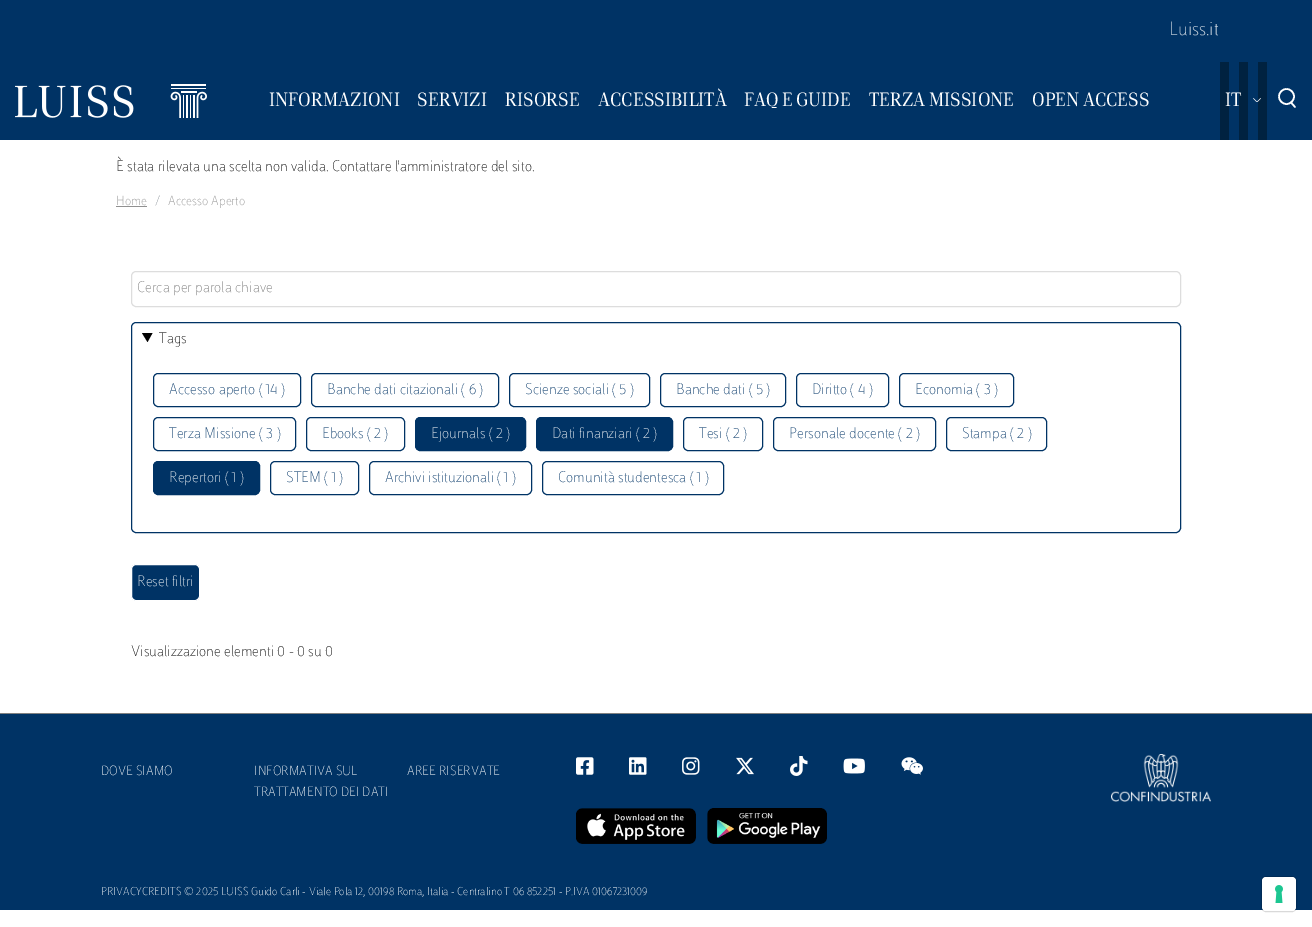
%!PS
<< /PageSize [1312 927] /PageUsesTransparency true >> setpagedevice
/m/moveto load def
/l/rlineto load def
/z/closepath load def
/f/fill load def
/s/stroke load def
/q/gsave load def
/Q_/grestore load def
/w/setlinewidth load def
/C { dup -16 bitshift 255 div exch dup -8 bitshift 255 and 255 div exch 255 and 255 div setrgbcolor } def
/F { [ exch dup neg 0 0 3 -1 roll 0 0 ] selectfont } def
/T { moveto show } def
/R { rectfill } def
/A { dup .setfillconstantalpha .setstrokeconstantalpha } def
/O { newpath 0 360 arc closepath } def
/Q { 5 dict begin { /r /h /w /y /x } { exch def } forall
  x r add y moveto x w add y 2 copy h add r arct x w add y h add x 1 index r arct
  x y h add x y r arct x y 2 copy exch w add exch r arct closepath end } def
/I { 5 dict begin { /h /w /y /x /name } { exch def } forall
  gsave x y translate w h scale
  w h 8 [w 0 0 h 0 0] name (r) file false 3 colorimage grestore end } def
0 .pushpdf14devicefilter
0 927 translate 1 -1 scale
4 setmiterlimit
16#FFFFFF C
0 0 1312 927 R
16#003365 C
0 0 1312 140 R
/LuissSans-Thin 20 F
16#FFFFFF C
(Luiss.it) 1169 35 T
(1.rgb) 15 84 192 34 I
/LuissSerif-Regular 20 F
(INFORMAZIONI) 269 106 T
(SERVIZI) 417 106 T
(RISORSE) 505 106 T
(ACCESSIBILITÀ) 598 106 T
(FAQ E GUIDE) 744 106 T
(TERZA MISSIONE) 869 106 T
(OPEN ACCESS) 1032 106 T
16#002240 C
1220 62 9 78 R
1239 62 9 78 R
16#FFFFFF C
(IT) 1225 106 T
16#002240 C
1258 62 9 78 R
(2.rgb) 1253 98 8 4 I
16#FFFFFF C
1.6 w
1286.5 96.5 7.5 O s
1 setlinecap
1 setlinejoin
1295 107 m -4 -4.5 l s
/LuissSans-Thin 16 F
16#010101 C
(È stata rilevata una scelta non valida. Contattare l'amministratore del sito.) 116 171 T
/LuissSans-Thin 14 F
16#909090 C
(Home) 116 205 T
116 206 31 1 R
16#6C757D C
(/) 155 205 T
16#909090 C
(Accesso Aperto) 168 205 T
16#DDDDDD C
1 w
0 setlinecap
0 setlinejoin
131.5 271.5 1049 35 4.5 Q s
/LuissSans-Thin 16 F
16#757575 C
(Cerca per parola chiave) 137 292 T
16#003365 C
131.5 322.5 1049 210 4.5 Q s
16#010101 C
142 333 m 10.5 0 l -5 9 l z f
(Tags) 159 343 T
16#003365 C
153.5 373.5 147 33 4.5 Q s
(Accesso aperto \( 14 \)) 169 394 T
311.5 373.5 187 33 4.5 Q s
(Banche dati citazionali \( 6 \)) 327 394 T
509.5 373.5 140 33 4.5 Q s
(Scienze sociali \( 5 \)) 525 394 T
660.5 373.5 125 33 4.5 Q s
(Banche dati \( 5 \)) 676 394 T
796.5 373.5 92 33 4.5 Q s
(Diritto \( 4 \)) 812 394 T
899.5 373.5 114 33 4.5 Q s
(Economia \( 3 \)) 915 394 T
153.5 417.5 142 33 4.5 Q s
(Terza Missione \( 3 \)) 169 438 T
306.5 417.5 98 33 4.5 Q s
(Ebooks \( 2 \)) 322 438 T
415.5 417.5 110 33 4.5 Q q f Q_
s
16#FFFFFF C
(Ejournals \( 2 \)) 431 438 T
16#003365 C
536.5 417.5 136 33 4.5 Q q f Q_
s
16#FFFFFF C
(Dati finanziari \( 2 \)) 552 438 T
16#003365 C
683.5 417.5 79 33 4.5 Q s
(Tesi \( 2 \)) 699 438 T
773.5 417.5 162 33 4.5 Q s
(Personale docente \( 2 \)) 789 438 T
946.5 417.5 100 33 4.5 Q s
(Stampa \( 2 \)) 962 438 T
153.5 461.5 106 33 4.5 Q q f Q_
s
16#FFFFFF C
(Repertori \( 1 \)) 169 482 T
16#003365 C
270.5 461.5 88 33 4.5 Q s
(STEM \( 1 \)) 286 482 T
369.5 461.5 162 33 4.5 Q s
(Archivi istituzionali \( 1 \)) 385 482 T
542.5 461.5 181 33 4.5 Q s
(Comunità studentesca \( 1 \)) 558 482 T
131.5 564.5 68 36 4.5 Q q f Q_
16#FFFFFF C
s
(Reset filtri) 137 586 T
16#010101 C
(Visualizzazione elementi 0 - 0 su 0) 131 656 T
16#003365 C
0 714 1312 196 R
16#808080 C
0 713 1312 1 R
/LuissSans-Thin 14 F
16#FFFFFF C
(DOVE SIAMO) 101 775 T
(INFORMATIVA SUL) 254 775 T
(TRATTAMENTO DEI DATI) 254 796 T
(AREE RISERVATE) 407 775 T
(3.rgb) 576 757 18 18 I
(4.rgb) 629 757 18 18 I
(5.rgb) 682 757 18 18 I
(6.rgb) 736 757 18 18 I
(7.rgb) 790 756 18 20 I
(8.rgb) 843 758 22 16 I
(9.rgb) 901 757 22 18 I
(10.rgb) 576 808 120 36 I
(11.rgb) 707 808 120 36 I
(12.rgb) 1111 754 100 48 I
/LuissSans-Thin 12 F
(PRIVACYCREDITS © 2025 LUISS Guido Carli - Viale Pola 12, 00198 Roma, Italia - Centralino T 06 852251 - P.IVA 01067231009) 101 895 T
0.15 A
16#000000 C
1261.5 876.5 35 35 4.5 Q s
1 A
16#FFFFFF C
1262 877 34 34 4 Q f
(13.rgb) 1275 885 8 18 I
.poppdf14devicefilter showpage
